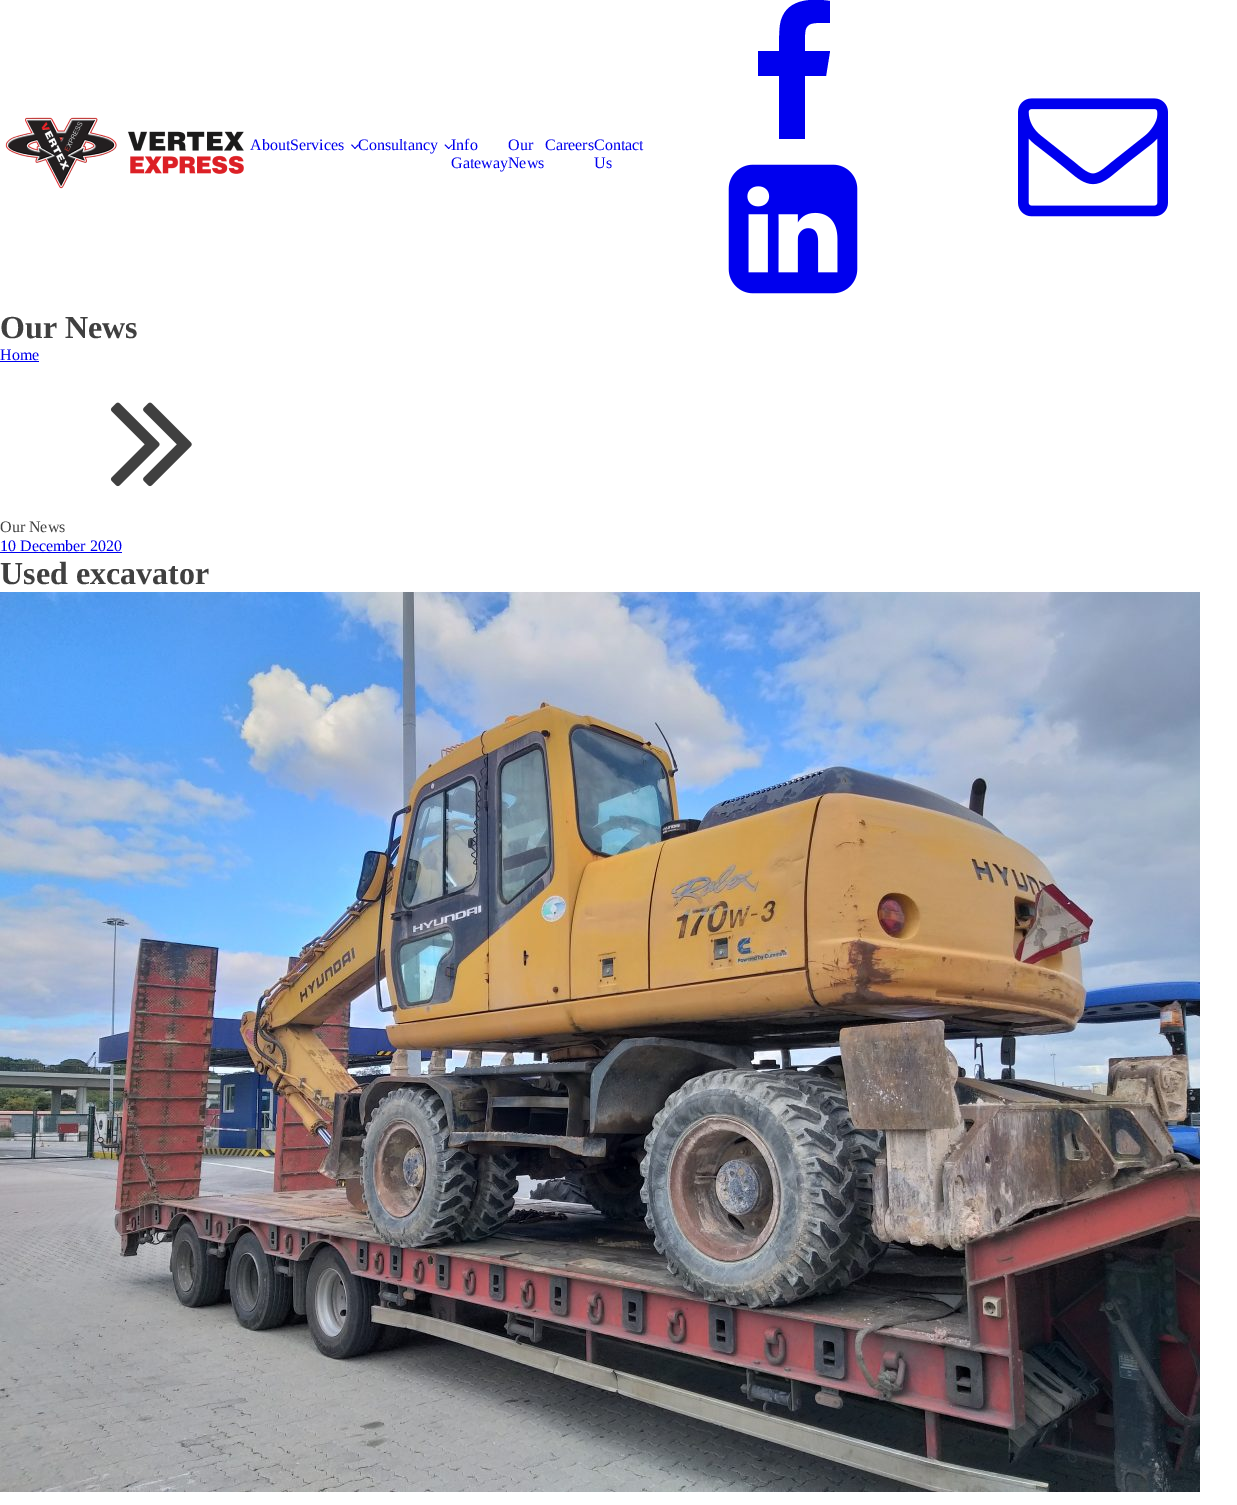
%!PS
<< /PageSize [1237 1505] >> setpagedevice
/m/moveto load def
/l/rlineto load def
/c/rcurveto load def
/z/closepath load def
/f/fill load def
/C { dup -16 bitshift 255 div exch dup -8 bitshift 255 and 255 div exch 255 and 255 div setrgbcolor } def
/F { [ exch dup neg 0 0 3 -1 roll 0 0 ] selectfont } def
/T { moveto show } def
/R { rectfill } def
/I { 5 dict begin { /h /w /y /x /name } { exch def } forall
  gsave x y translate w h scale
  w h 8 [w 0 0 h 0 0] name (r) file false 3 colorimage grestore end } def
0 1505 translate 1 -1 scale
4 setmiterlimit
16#FFFFFF C
0 0 1237 1505 R
(1.rgb) 5 117 239 72 I
/LiberationSerif-Regular 16 F
16#0000EE C
(AboutServices) 250 150 T
359 145 m -4 4 l -.5 -.5 l 3.5 -4 l z f
(Consultancy) 358 150 T
452.5 145 m -4 4 l -.5 -.5 l 4 -4 l z f
449.5 148.5 m -1 .5 l -4 -4 l 1 -.5 l z f
(Info) 451 150 T
(GatewayNews) 451 168 T
355.5 148.5 m -.5 .5 l -4 -4 l 1 -.5 l z f
(Our) 508 150 T
(CareersContact) 545 150 T
(Us) 594 168 T
830 1 m 0 22 l -13 0 l -10 0 -12 5 -12 12 c 0 16 l 25 0 l -4 25 l -21 0 l 0 63 l -26 0 l 0 -63 l -21 0 l 0 -25 l 21 0 l 0 -8 0 -17 1 -26 c 4 -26 30 -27 50 -24 c z f
(2.rgb) 728 164 130 130 I
(3.rgb) 1018 98 150 119 I
/LiberationSerif-Bold 32 F
16#404040 C
(Our News) 0 338 T
/LiberationSerif-Regular 16 F
16#0000EE C
(Home) 0 360 T
0 361 39 1 R
(4.rgb) 110 402 82 85 I
16#404040 C
(Our News) 0 532 T
16#0000EE C
(10 December 2020) 0 551 T
0 552 122 1 R
/LiberationSerif-Bold 32 F
16#404040 C
(Used excavator) 0 584 T
(5.rgb) 0 592 1200 900 I
showpage
